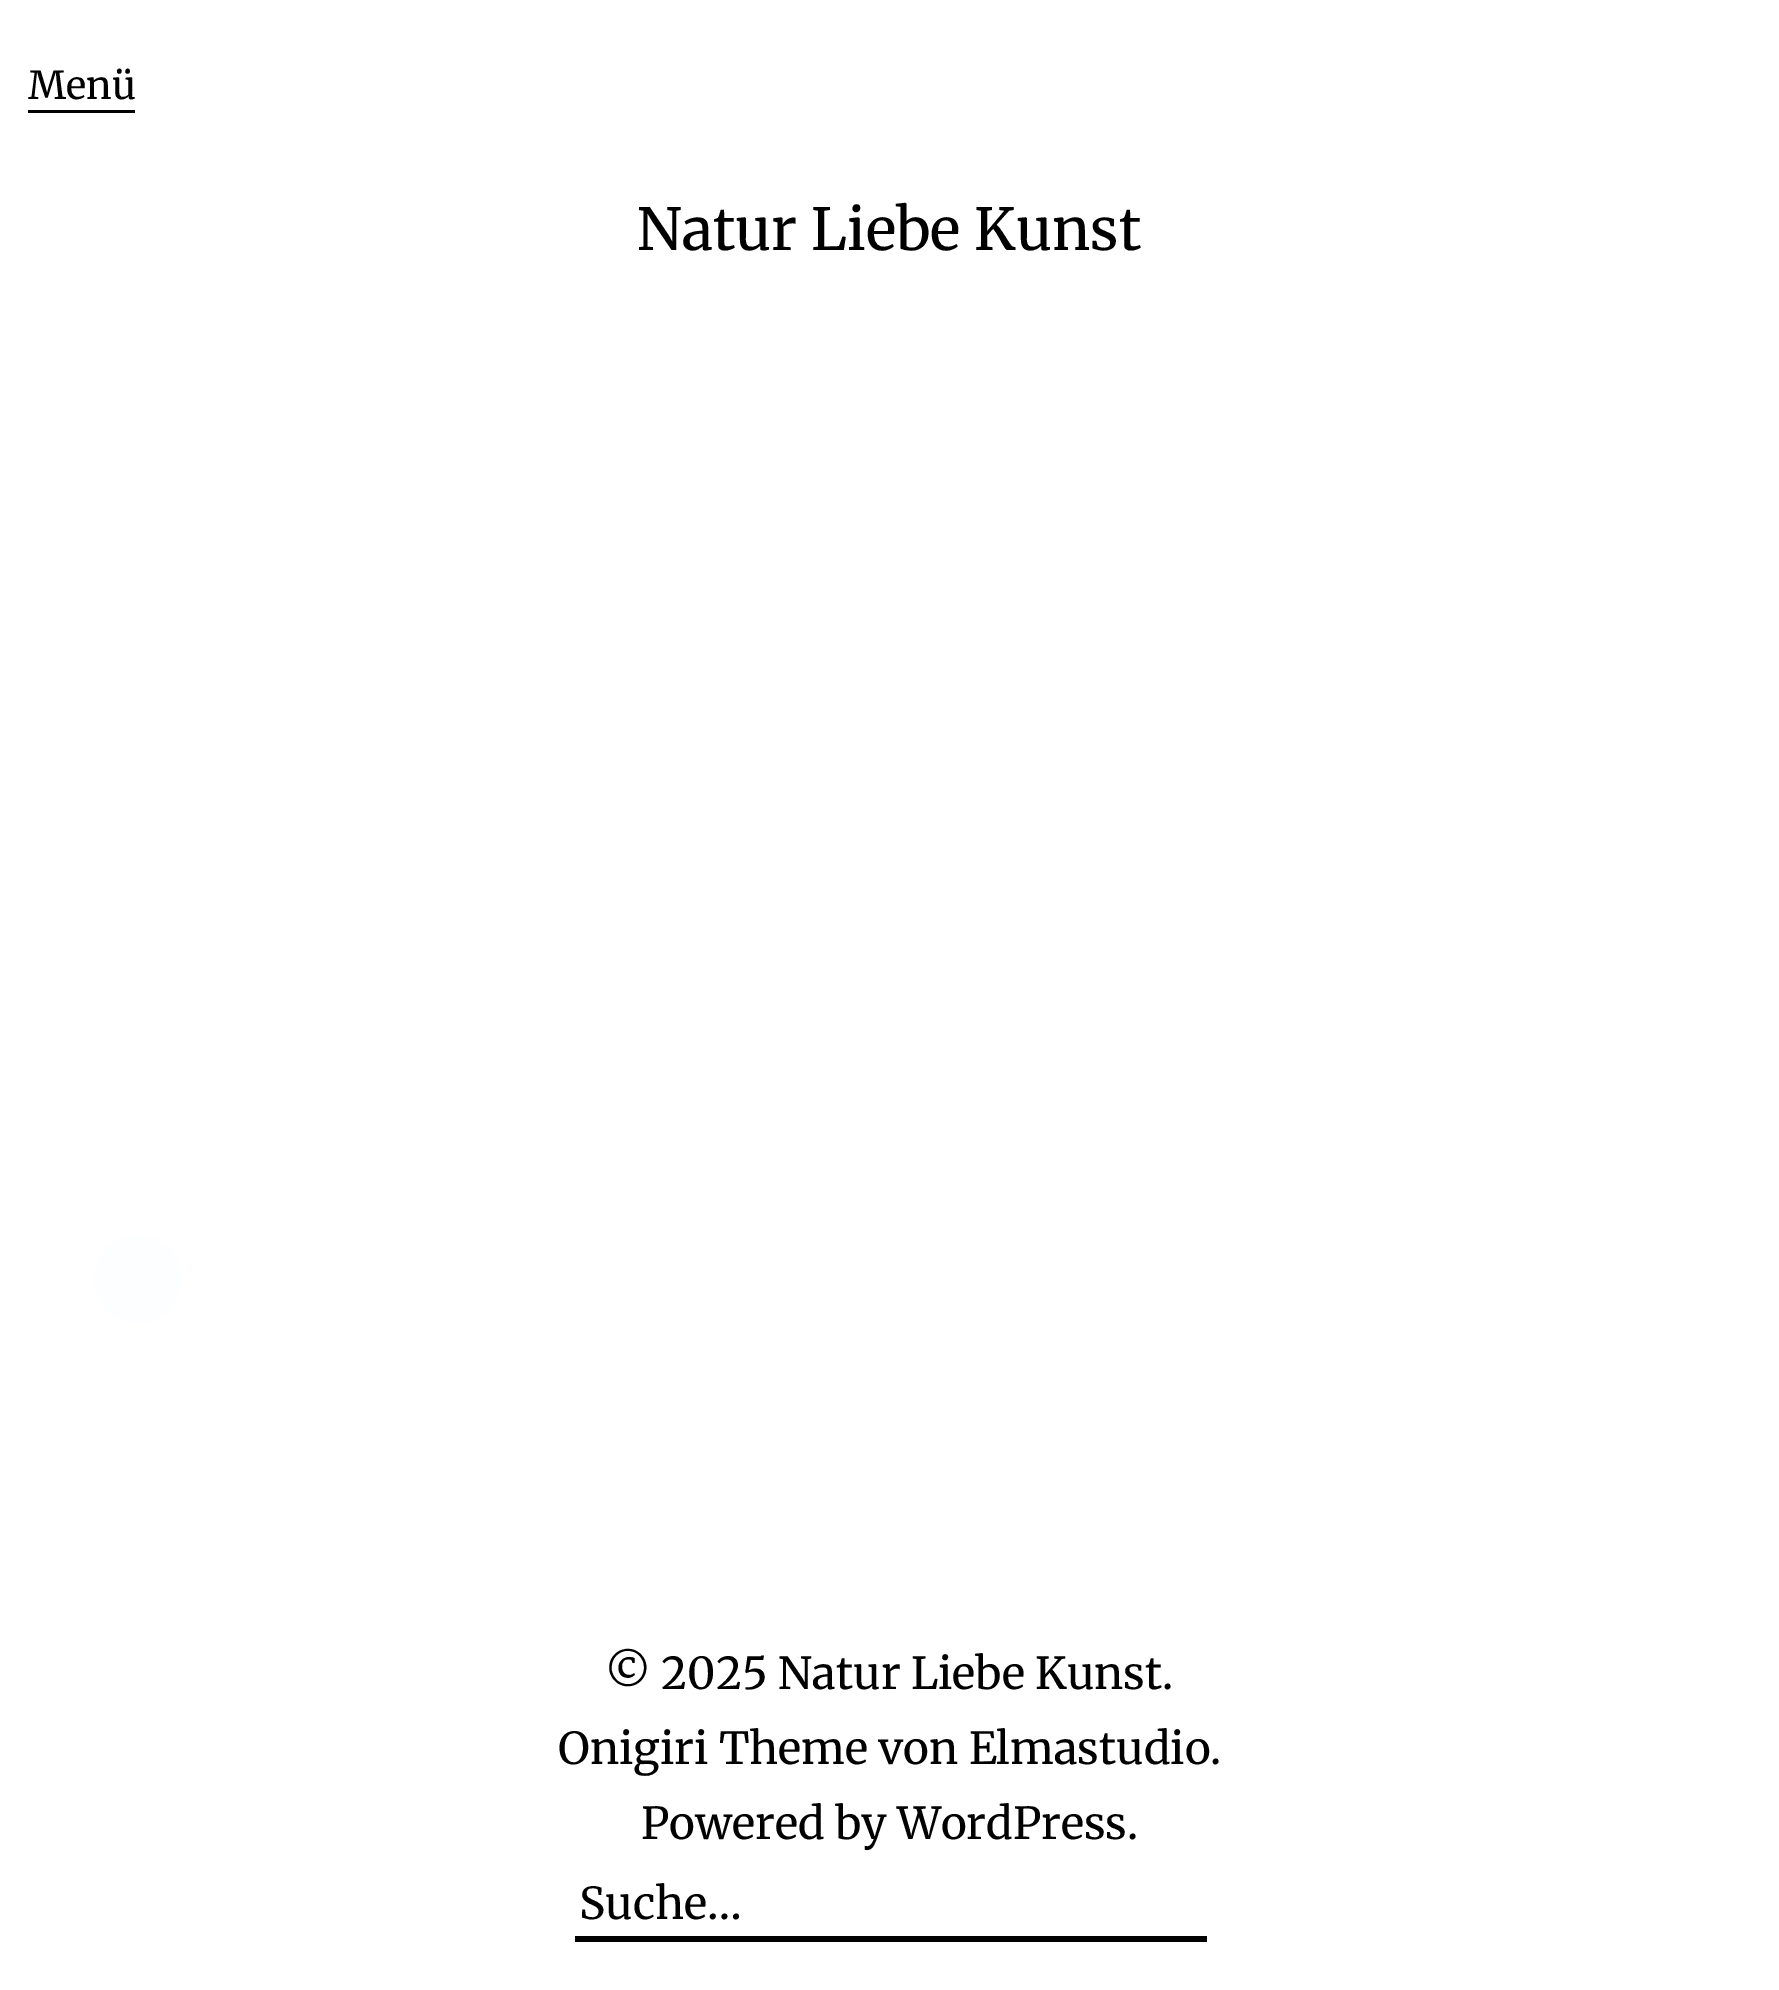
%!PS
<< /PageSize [1779 1990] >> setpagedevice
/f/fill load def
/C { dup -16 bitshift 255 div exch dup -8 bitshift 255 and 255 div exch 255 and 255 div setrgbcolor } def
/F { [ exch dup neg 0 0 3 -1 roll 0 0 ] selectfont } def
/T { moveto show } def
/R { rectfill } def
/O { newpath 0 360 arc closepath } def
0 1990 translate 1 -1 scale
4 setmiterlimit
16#FFFFFF C
0 0 1779 1990 R
16#000000 C
28 110 107 3 R
/Merriweather-Regular 38.5 F
(Menü) 28 99 T
/Merriweather-Regular 57.75 F
(Natur Liebe Kunst) 637 250 T
16#FCFEFF C
138 1279 44 O f
/Merriweather-Regular 44 F
16#000000 C
(© 2025 Natur Liebe Kunst.) 605 1689 T
(Onigiri Theme von Elmastudio.) 558 1764 T
(Powered by WordPress.) 641 1839 T
575 1936 632 6 R
(Suche…) 579 1919 T
showpage
